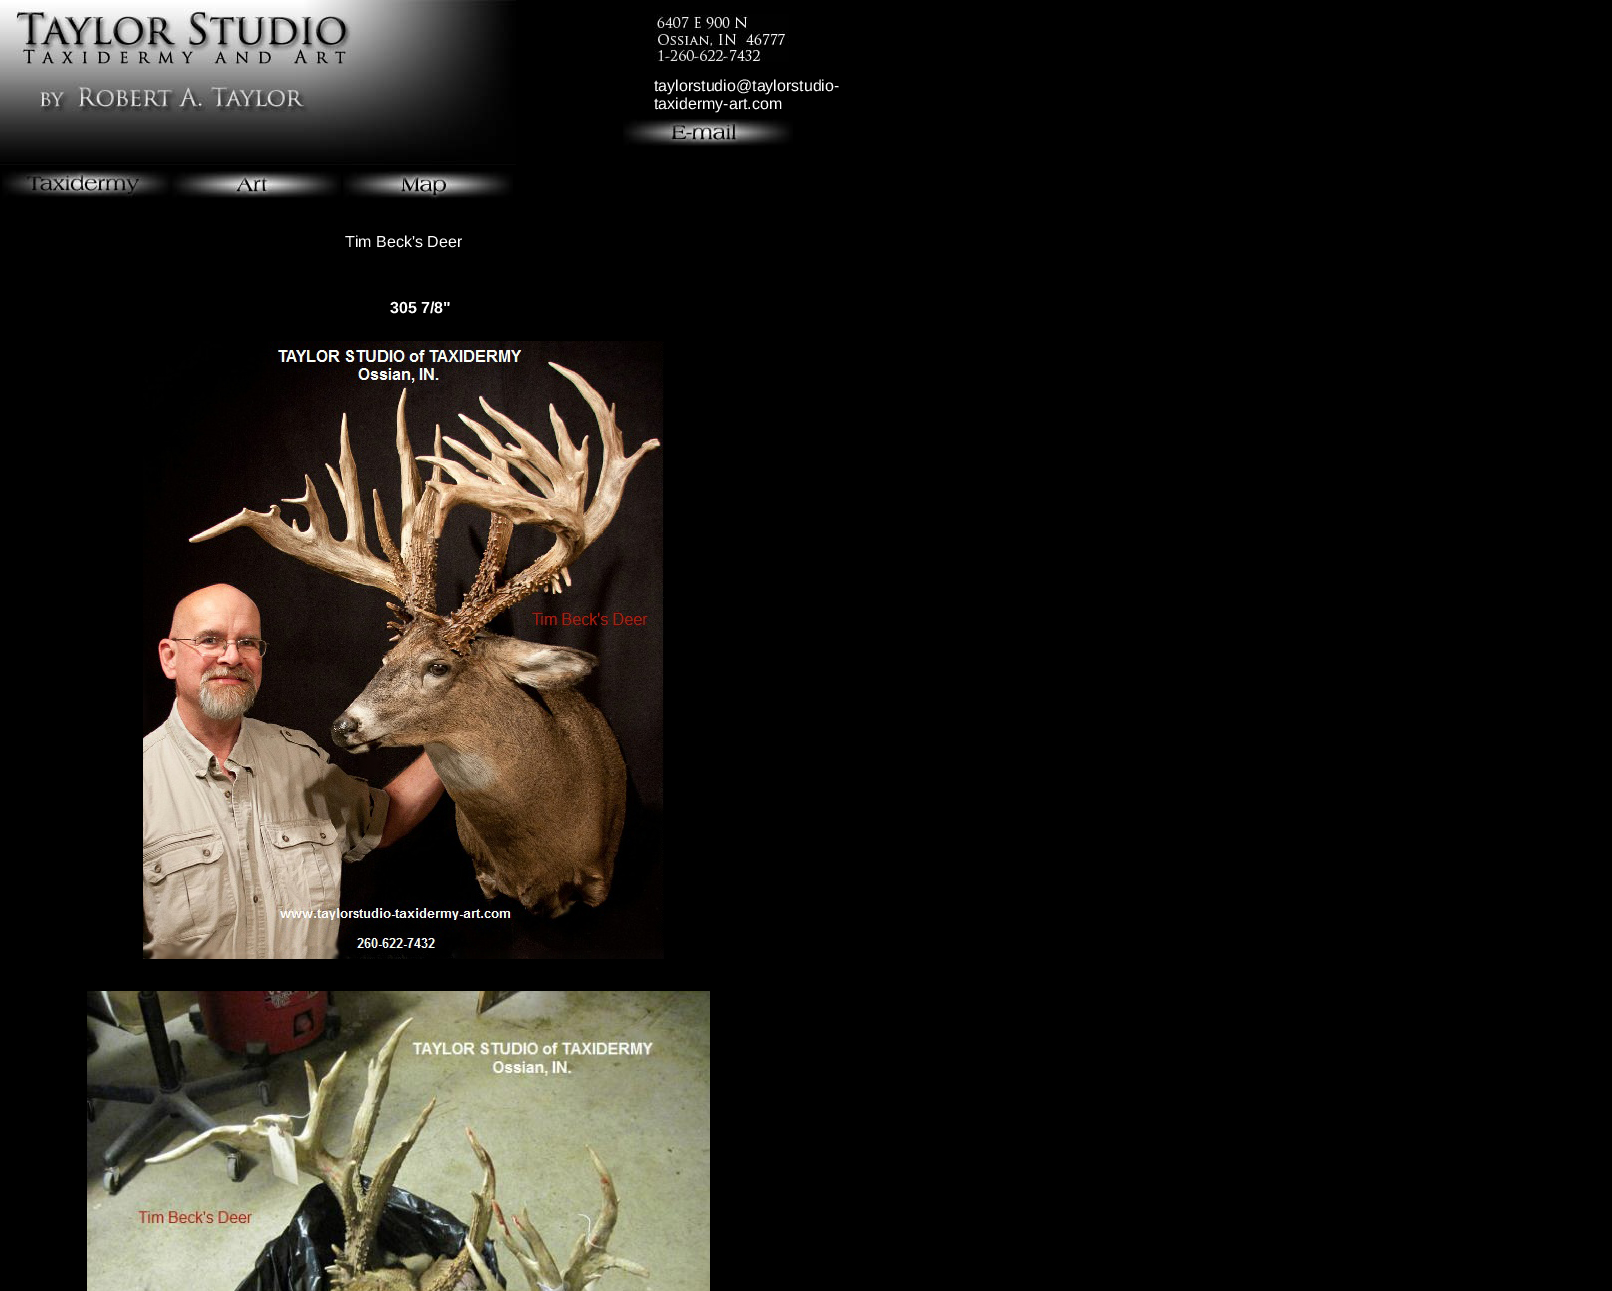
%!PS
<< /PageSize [1612 1291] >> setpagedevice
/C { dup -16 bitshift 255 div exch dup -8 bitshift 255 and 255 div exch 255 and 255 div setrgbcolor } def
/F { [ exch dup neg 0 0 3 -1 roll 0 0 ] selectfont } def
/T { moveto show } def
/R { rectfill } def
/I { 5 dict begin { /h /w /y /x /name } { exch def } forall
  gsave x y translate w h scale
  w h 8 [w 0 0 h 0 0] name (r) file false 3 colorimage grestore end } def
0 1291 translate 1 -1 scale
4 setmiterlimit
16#000000 C
0 0 1612 1291 R
(1.rgb) 0 0 516 165 I
(2.rgb) 654 14 135 48 I
/LiberationSans-Regular 16 F
16#FFFFFF C
(taylorstudio@taylorstudio-) 654 91 T
(taxidermy-art.com) 654 109 T
(3.rgb) 623 119 170 27 I
(4.rgb) 2 170 170 29 I
(5.rgb) 172 171 169 27 I
(6.rgb) 343 171 170 29 I
(Tim Beck's Deer) 345 247 T
/LiberationSans-Bold 16 F
(305 7/8") 390 313 T
(7.rgb) 143 341 521 618 I
(8.rgb) 87 991 623 300 I
showpage
